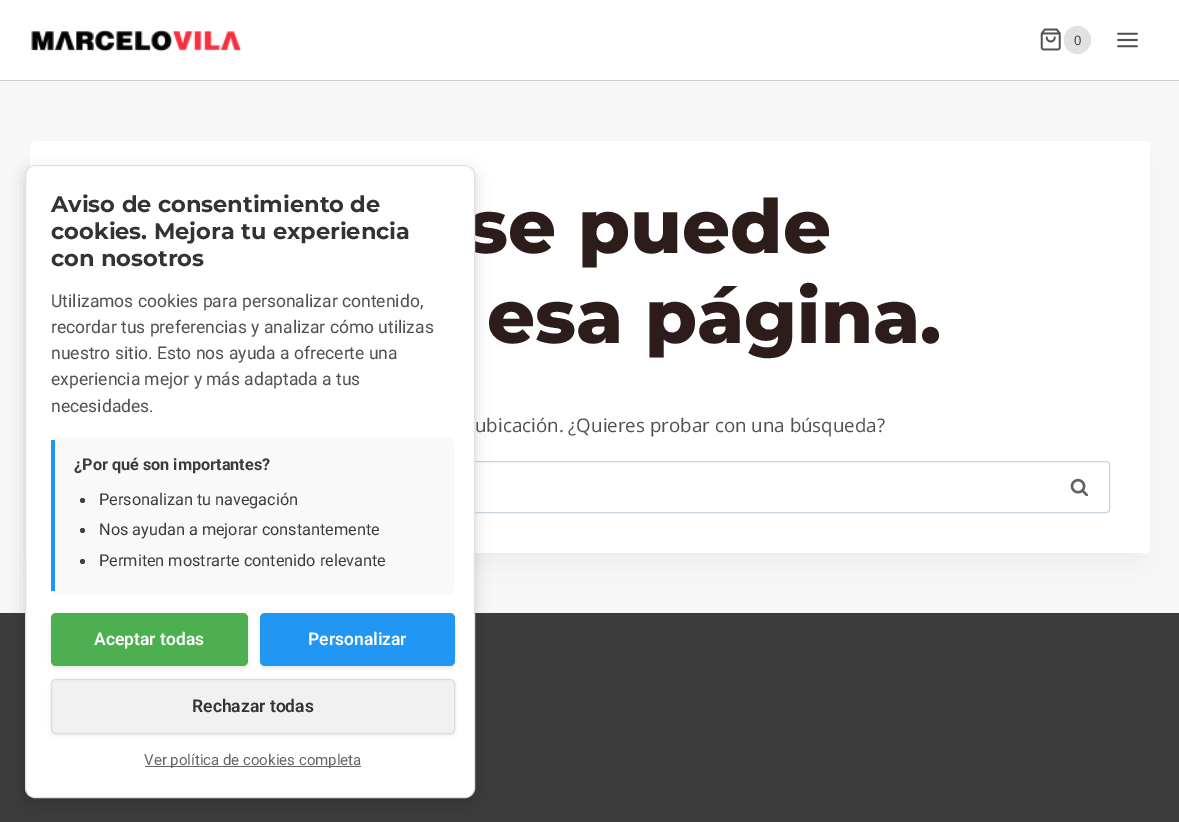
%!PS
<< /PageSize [1179 822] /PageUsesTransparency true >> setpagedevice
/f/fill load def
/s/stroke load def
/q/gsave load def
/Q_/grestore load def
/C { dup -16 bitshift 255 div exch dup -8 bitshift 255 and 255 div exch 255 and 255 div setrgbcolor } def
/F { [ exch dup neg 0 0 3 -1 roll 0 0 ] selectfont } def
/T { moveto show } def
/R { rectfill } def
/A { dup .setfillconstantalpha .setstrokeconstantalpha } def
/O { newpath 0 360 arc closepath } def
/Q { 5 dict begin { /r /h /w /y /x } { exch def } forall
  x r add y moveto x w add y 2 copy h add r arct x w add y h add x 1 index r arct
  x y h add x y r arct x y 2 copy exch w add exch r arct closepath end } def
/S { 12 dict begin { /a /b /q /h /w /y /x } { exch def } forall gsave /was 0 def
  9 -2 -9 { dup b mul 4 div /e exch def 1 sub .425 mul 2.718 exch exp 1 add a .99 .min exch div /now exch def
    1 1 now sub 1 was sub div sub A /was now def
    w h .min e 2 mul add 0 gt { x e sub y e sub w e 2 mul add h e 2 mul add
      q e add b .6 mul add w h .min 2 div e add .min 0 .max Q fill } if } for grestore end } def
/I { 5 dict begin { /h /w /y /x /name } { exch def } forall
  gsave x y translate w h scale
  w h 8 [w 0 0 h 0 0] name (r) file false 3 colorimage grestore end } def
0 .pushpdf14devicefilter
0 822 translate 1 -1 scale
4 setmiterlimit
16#F7F7F7 C
0 0 1179 822 R
16#000000 C
43 173 1095 386 0 15.5 .05 S
16#FFFFFF C
30 141 1120 412 5 Q f
16#CBD5E0 C
70.5 461.5 1039 51 3.5 Q s
16#3B3B3B C
0 613 1179 209 R
16#000000 C
25 170 450 633 10 7.5 .15 S
/Montserrat-ExtraBold 75 F
16#2C1D1A C
(se puede) 467 253 T
16#FFFFFF C
25.5 165.5 449 632 9.5 Q q f Q_
16#E0E0E0 C
s
/Montserrat-Bold 22.5 F
16#333333 C
(Aviso de consentimiento de) 51 212 T
(cookies. Mejora tu experiencia) 51 239 T
(con nosotros) 51 266 T
/Roboto-Regular 17.5 F
16#515151 C
(Utilizamos cookies para personalizar contenido,) 51 307 T
(recordar tus preferencias y analizar cómo utilizas) 51 333 T
(nuestro sitio. Esto nos ayuda a ofrecerte una) 51 359 T
(experiencia mejor y más adaptada a tus) 51 385 T
(necesidades.) 51 412 T
16#F9F9F9 C
51 438 404 156 5 Q f
16#2196F3 C
51 440 4 151 R
/Roboto-Bold 16.25 F
16#3B3B3B C
(¿Por qué son importantes?) 74 470 T
16#404040 C
82.5 500.5 2.5 O f
/Roboto-Regular 16.25 F
16#3B3B3B C
(Personalizan tu navegación) 99 505 T
16#404040 C
82.5 530.5 2.5 O f
16#3B3B3B C
(Nos ayudan a mejorar constantemente) 99 535 T
16#404040 C
82.5 561.5 2.5 O f
16#3B3B3B C
(Permiten mostrarte contenido relevante) 99 566 T
16#000000 C
51 614 197 54 5 2 .1 S
16#4CAF50 C
51 613 197 53 5 Q f
/Roboto-SemiBold 17.5 F
16#FFFFFF C
(Aceptar todas) 94 645 T
16#000000 C
260 614 195 54 5 2 .1 S
16#2196F3 C
260 613 195 53 5 Q f
16#FFFFFF C
(Personalizar) 308 645 T
16#000000 C
51 680 404 55 5 2 .1 S
16#F1F1F1 C
51.5 679.5 403 54 4.5 Q q f Q_
16#DDDDDD C
s
16#333333 C
(Rechazar todas) 192 712 T
16#666666 C
145 766 216 1 R
/Roboto-Regular 15 F
(Ver política de cookies completa) 144 765 T
16#FFFFFF C
0 0 1179 80 R
16#CBCFD3 C
0 80 1179 1 R
(1.rgb) 31 30 211 22 I
(2.rgb) 1040 28 21 23 I
16#E1E1E1 C
1064 26 27 28 13.5 Q f
/OpenSans-Regular 13 F
16#3B3B3B C
(0) 1074 45 T
(3.rgb) 1117 32 21 16 I
/Montserrat-ExtraBold 75 F
16#2C1D1A C
(esa página.) 487 343 T
/OpenSans-Regular 18.75 F
16#515151 C
(ubicación. ¿Quieres probar con una búsqueda?) 475 432 T
(4.rgb) 1070 478 18 18 I
.poppdf14devicefilter showpage
